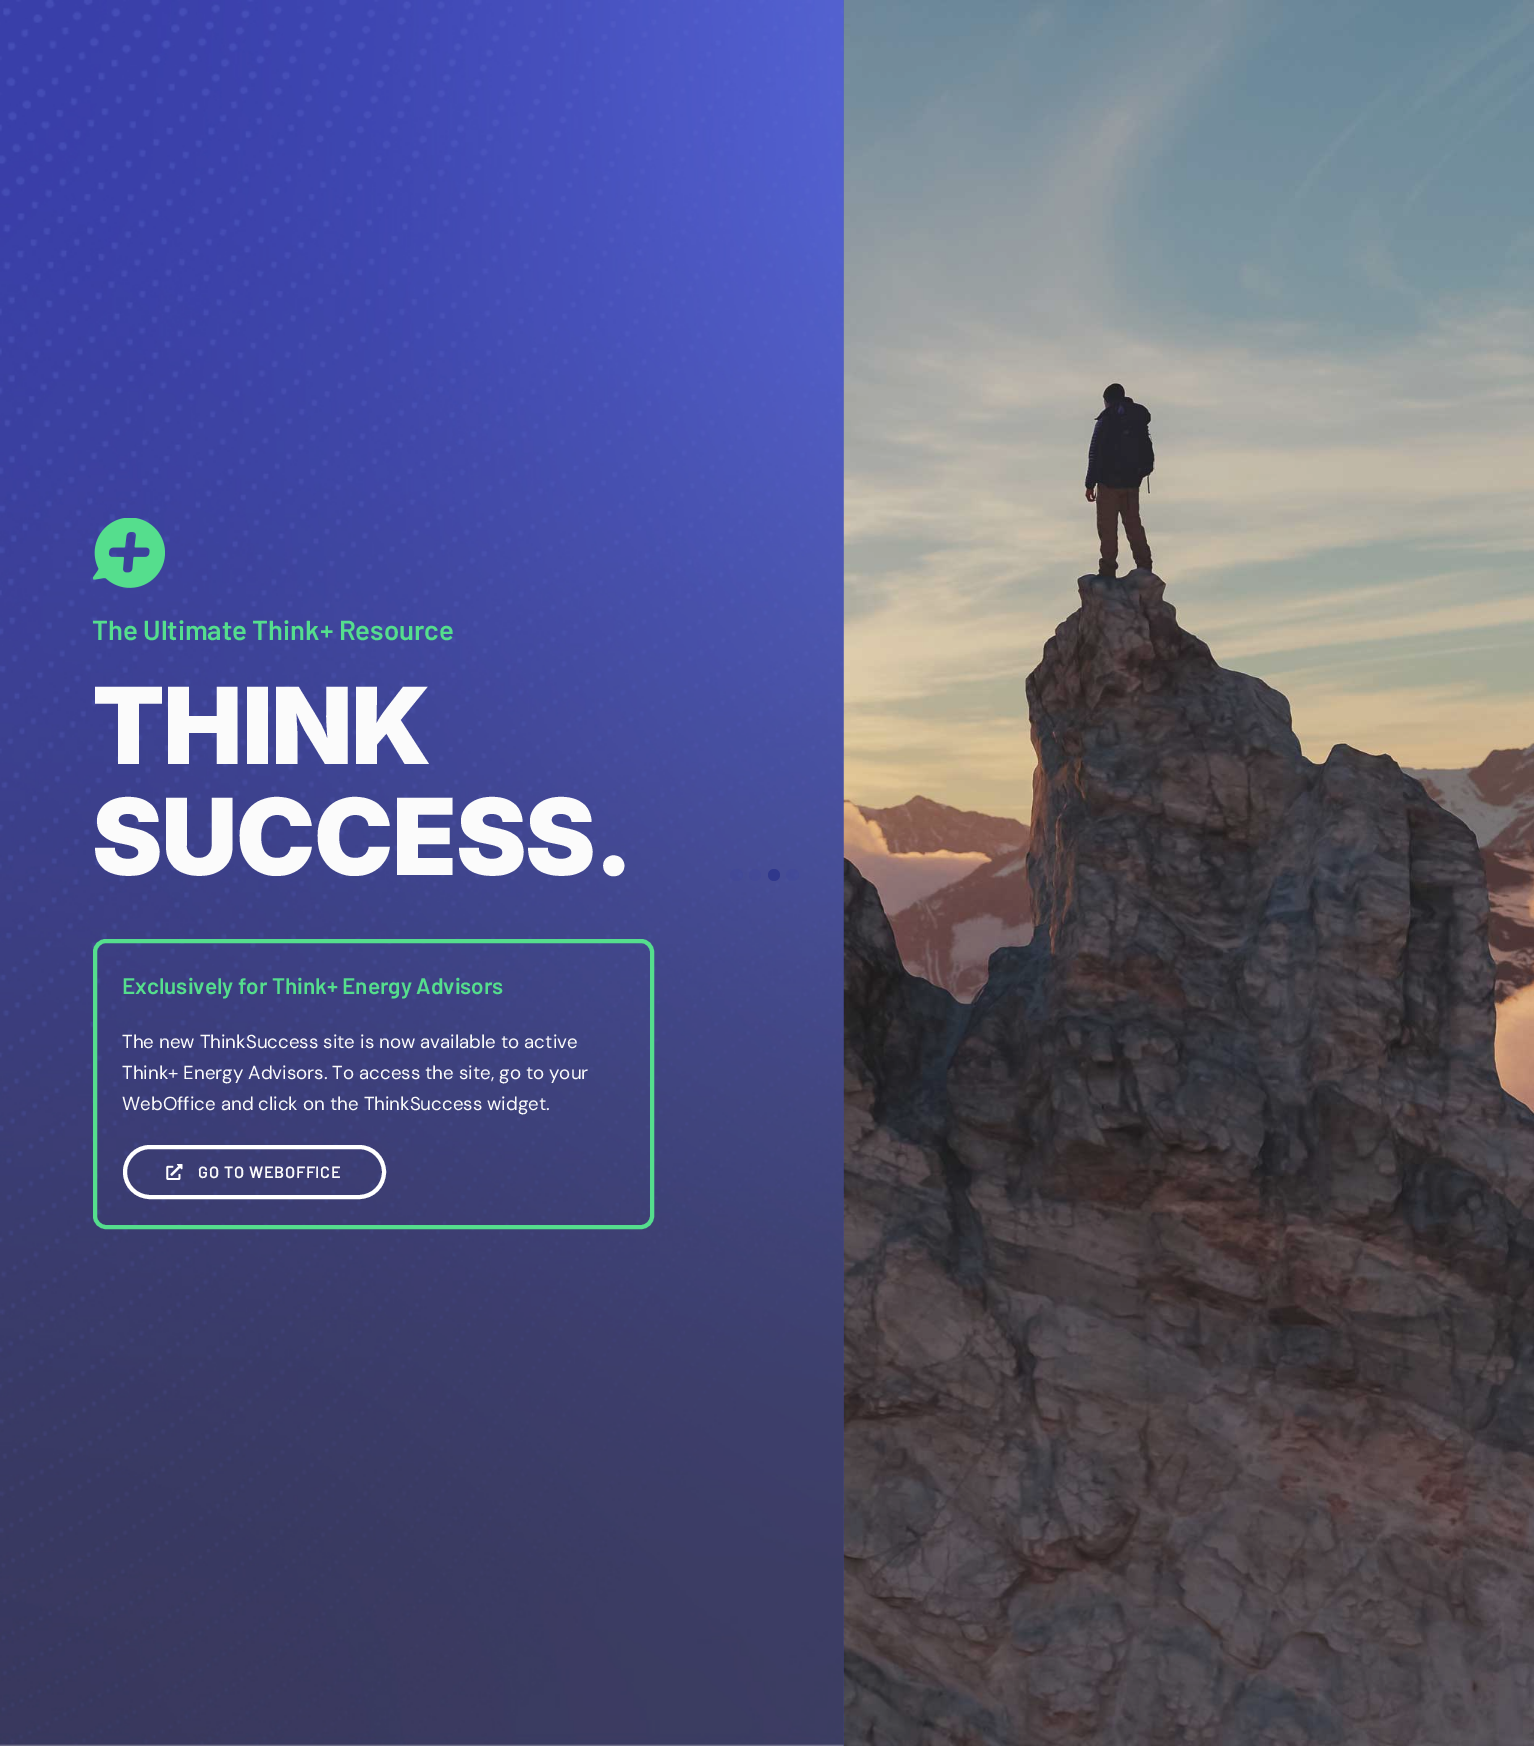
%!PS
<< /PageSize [1534 1746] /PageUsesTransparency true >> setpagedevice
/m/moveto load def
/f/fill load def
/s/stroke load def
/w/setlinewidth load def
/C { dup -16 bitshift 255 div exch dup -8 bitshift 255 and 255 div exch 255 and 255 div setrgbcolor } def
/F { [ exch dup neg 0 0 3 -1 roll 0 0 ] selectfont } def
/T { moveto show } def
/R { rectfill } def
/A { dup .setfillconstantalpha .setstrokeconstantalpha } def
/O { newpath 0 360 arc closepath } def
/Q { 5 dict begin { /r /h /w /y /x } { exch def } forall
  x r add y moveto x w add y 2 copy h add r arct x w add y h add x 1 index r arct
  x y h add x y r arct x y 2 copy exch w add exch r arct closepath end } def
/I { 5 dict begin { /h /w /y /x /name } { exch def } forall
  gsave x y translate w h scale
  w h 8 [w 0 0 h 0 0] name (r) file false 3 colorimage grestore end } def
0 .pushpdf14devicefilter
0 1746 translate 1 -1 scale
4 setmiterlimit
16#FFFFFF C
0 0 1534 1746 R
(1.rgb) 0 0 844 1746 I
(2.rgb) 93 518 72 70 I
/Barlow-SemiBold 27.5 F
16#55DE8D C
(The Ultimate Think+ Resource) 92 640 T
/Inter-Black 106.25 F
16#FBFBFB C
92 764 m -1.5 0 (THINK) ashow
92 875 m -1.5 0 (SUCCESS.) ashow
16#55DE8D C
4 w
95 941 557 286 11 Q s
/Barlow-SemiBold 22.5 F
(Exclusively for Think+ Energy Advisors) 122 994 T
/DMSans-Regular 18.75 F
16#FBFBFB C
(The new ThinkSuccess site is now available to active) 122 1048 T
(Think+ Energy Advisors. To access the site, go to your) 122 1079 T
(WebOffice and click on the ThinkSuccess widget.) 122 1110 T
16#FFFFFF C
125 1147 259 50 25 Q s
(3.rgb) 166 1164 17 16 I
/Barlow-SemiBold 16.25 F
16#FBFBFB C
198 1178 m .75 0 (GO TO WEBOFFICE) ashow
(4.rgb) 843 0 691 1746 I
0.1 A
16#2830A6 C
730 869 13 12 6 Q f
755 875 6 O f
1 A
16#30388C C
774 875 6 O f
0.1 A
16#2830A6 C
786 869 13 12 6 Q f
.poppdf14devicefilter showpage
